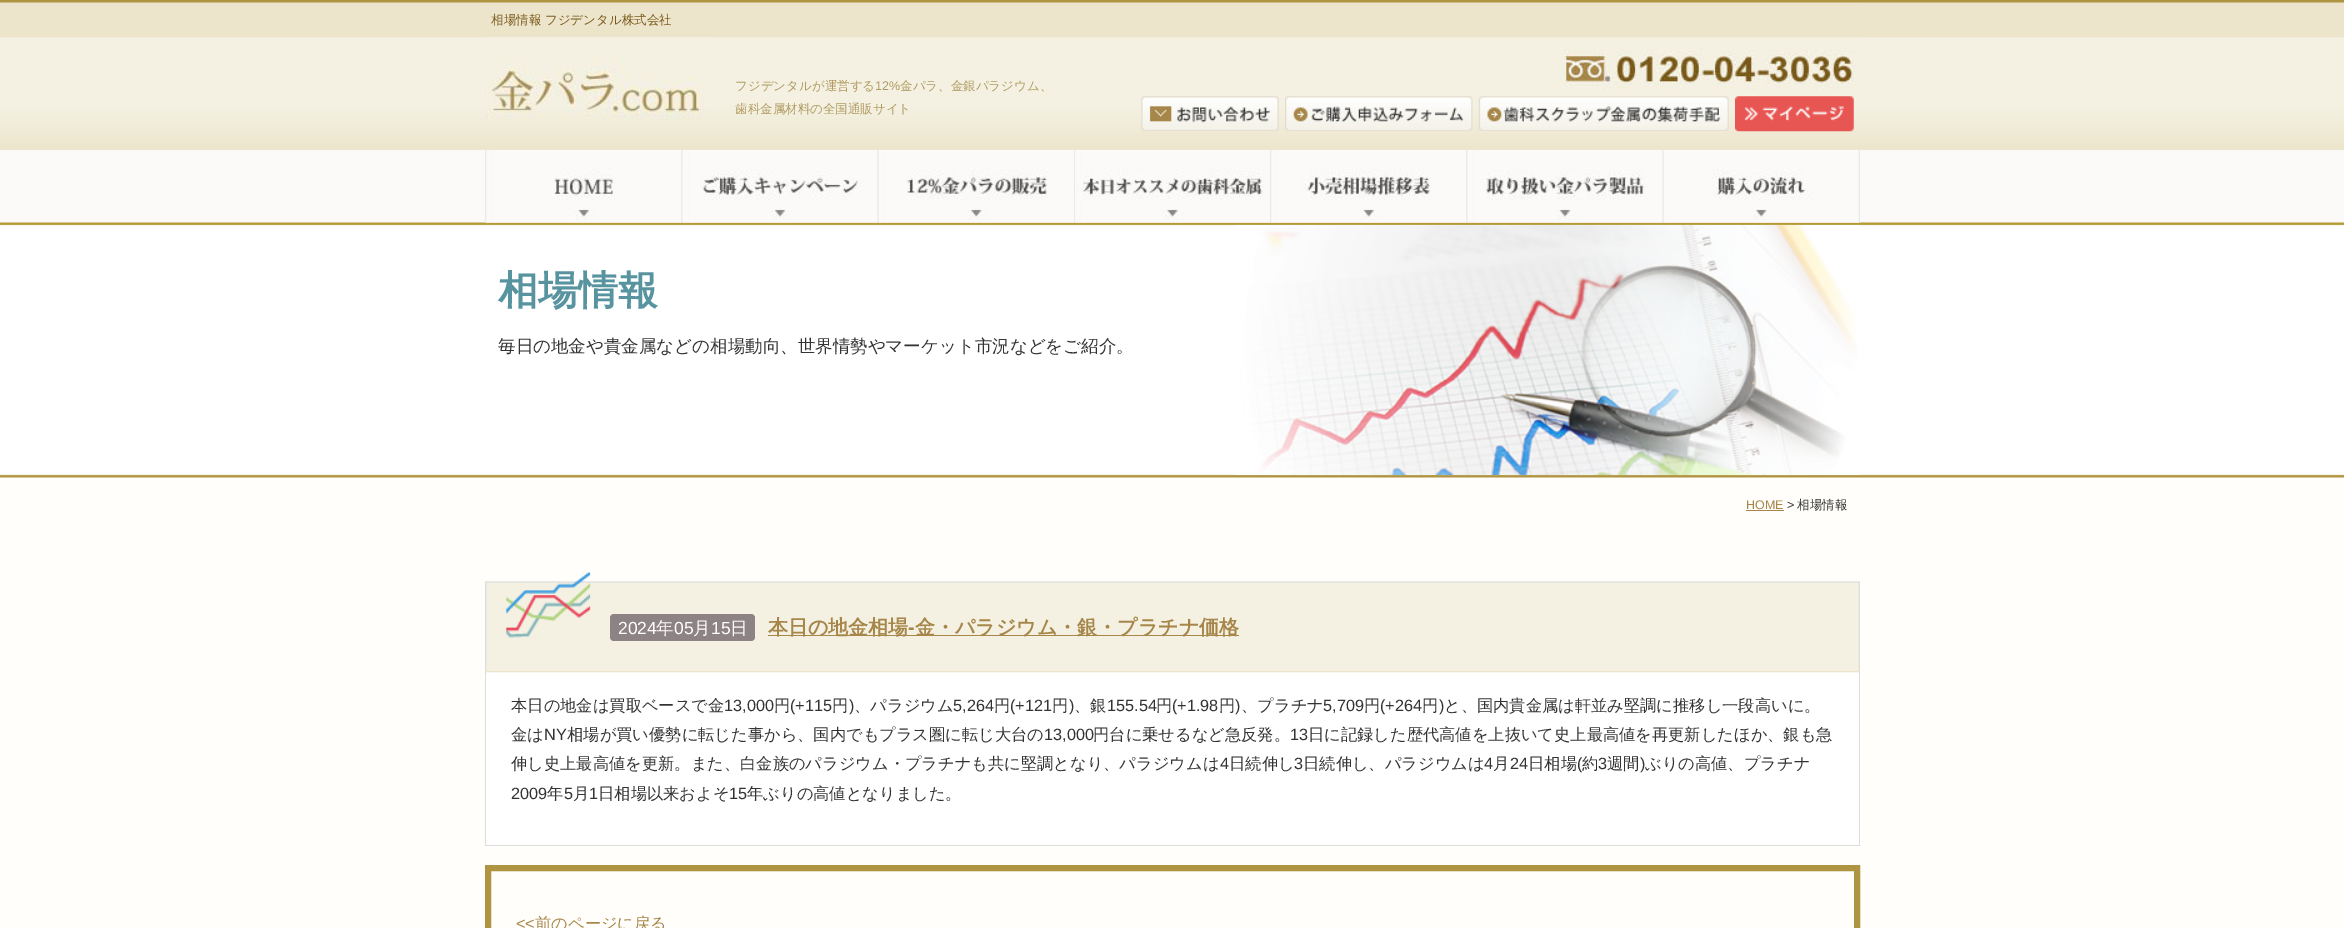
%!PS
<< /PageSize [2344 928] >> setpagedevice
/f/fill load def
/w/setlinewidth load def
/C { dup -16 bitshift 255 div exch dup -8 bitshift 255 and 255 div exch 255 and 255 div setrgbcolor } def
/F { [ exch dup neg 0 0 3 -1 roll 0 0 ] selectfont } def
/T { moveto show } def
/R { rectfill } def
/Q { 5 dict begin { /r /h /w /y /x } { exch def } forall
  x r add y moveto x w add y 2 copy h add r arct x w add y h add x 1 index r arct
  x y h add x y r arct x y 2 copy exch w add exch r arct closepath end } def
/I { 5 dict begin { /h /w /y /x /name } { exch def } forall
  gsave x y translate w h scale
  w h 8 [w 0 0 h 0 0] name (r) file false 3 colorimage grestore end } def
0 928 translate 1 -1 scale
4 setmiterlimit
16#FFFEFA C
0 0 2344 928 R
(1.rgb) 0 0 2344 478 I
(2.rgb) 485 3 1375 87 I
/WenQuanYiZenHei-Medium 12.5 F
16#7A5A1B C
(相場情報 フジデンタル株式会社) 491 24 T
(3.rgb) 485 37 231 81 I
16#B19B61 C
(フジデンタルが運営する) 735 90 T
/LiberationSans-Regular 12.5 F
(12%) 875 90 T
/WenQuanYiZenHei-Medium 12.5 F
(金パラ、金銀パラジウム、) 900 90 T
(歯科金属材料の全国通販サイト) 735 113 T
(4.rgb) 1141 96 138 35 I
(5.rgb) 1285 96 188 35 I
(6.rgb) 1478 96 251 35 I
(7.rgb) 1735 96 119 36 I
(8.rgb) 485 150 197 73 I
(10.rgb) 681 150 197 73 I
(9.rgb) 485 169 197 54 I
(12.rgb) 877 150 197 73 I
(11.rgb) 681 150 197 73 I
(14.rgb) 1073 150 197 73 I
(13.rgb) 877 150 197 73 I
(15.rgb) 1074 170 196 53 I
(16.rgb) 1270 150 197 73 I
(18.rgb) 1466 150 197 73 I
(17.rgb) 1270 169 197 54 I
(20.rgb) 1662 150 198 73 I
(19.rgb) 1466 150 197 73 I
(21.rgb) 1662 150 198 73 I
/WenQuanYiZenHei-Bold 40 F
16#5894A0 C
(相場情報) 498 304 T
/WenQuanYiZenHei-Medium 17.5 F
16#333333 C
(毎日の地金や貴金属などの相場動向、世界情勢やマーケット市況などをご紹介。) 498 352 T
(22.rgb) 1235 225 625 250 I
/LiberationSans-Regular 12.5 F
16#A68649 C
(HOME) 1746 509 T
1746 510 38 1 R
16#333333 C
(>) 1787 509 T
/WenQuanYiZenHei-Medium 12.5 F
(相場情報) 1797 509 T
16#FFFFFF C
486 566 1373 279 R
16#DDDDDD C
1859 566 1 280 R
485 845 1375 1 R
485 566 1 280 R
(23.rgb) 485 566 1375 107 I
16#ECE5CB C
485 671 1375 1 R
16#8D8384 C
610 614 145 27 4 Q f
/LiberationSans-Regular 17.5 F
16#FFFFFF C
(2024) 618 634 T
/WenQuanYiZenHei-Medium 17.5 F
(年) 656 634 T
/LiberationSans-Regular 17.5 F
(05) 674 634 T
/WenQuanYiZenHei-Medium 17.5 F
(月) 693 634 T
/LiberationSans-Regular 17.5 F
(15) 711 634 T
/WenQuanYiZenHei-Medium 17.5 F
(日) 730 634 T
16#A68649 C
768 635 471 1 R
/WenQuanYiZenHei-Bold 20 F
(本日の地金相場) 768 634 T
/LiberationSans-Bold 20 F
(-) 908 634 T
/WenQuanYiZenHei-Bold 20 F
(金・パラジウム・銀・プラチナ価格) 915 634 T
/WenQuanYiZenHei-Medium 16.25 F
16#333333 C
(本日の地金は買取ベースで金) 511 711 T
/LiberationSans-Regular 16.25 F
(13,000) 724 711 T
/WenQuanYiZenHei-Medium 16.25 F
(円) 774 711 T
/LiberationSans-Regular 16.25 F
(\(+115) 790 711 T
/WenQuanYiZenHei-Medium 16.25 F
(円) 832 711 T
/LiberationSans-Regular 16.25 F
(\)) 849 711 T
/WenQuanYiZenHei-Medium 16.25 F
(、パラジウム) 854 711 T
/LiberationSans-Regular 16.25 F
(5,264) 953 711 T
/WenQuanYiZenHei-Medium 16.25 F
(円) 994 711 T
/LiberationSans-Regular 16.25 F
(\(+121) 1010 711 T
/WenQuanYiZenHei-Medium 16.25 F
(円) 1052 711 T
/LiberationSans-Regular 16.25 F
(\)) 1069 711 T
/WenQuanYiZenHei-Medium 16.25 F
(、銀) 1074 711 T
/LiberationSans-Regular 16.25 F
(155.54) 1107 711 T
/WenQuanYiZenHei-Medium 16.25 F
(円) 1156 711 T
/LiberationSans-Regular 16.25 F
(\(+1.98) 1172 711 T
/WenQuanYiZenHei-Medium 16.25 F
(円) 1219 711 T
/LiberationSans-Regular 16.25 F
(\)) 1235 711 T
/WenQuanYiZenHei-Medium 16.25 F
(、プラチナ) 1241 711 T
/LiberationSans-Regular 16.25 F
(5,709) 1323 711 T
/WenQuanYiZenHei-Medium 16.25 F
(円) 1364 711 T
/LiberationSans-Regular 16.25 F
(\(+264) 1380 711 T
/WenQuanYiZenHei-Medium 16.25 F
(円) 1422 711 T
/LiberationSans-Regular 16.25 F
(\)) 1439 711 T
/WenQuanYiZenHei-Medium 16.25 F
(と、国内貴金属は軒並み堅調に推移し一段高いに。) 1444 711 T
(金は) 511 740 T
/LiberationSans-Regular 16.25 F
(NY) 544 740 T
/WenQuanYiZenHei-Medium 16.25 F
(相場が買い優勢に転じた事から、国内でもプラス圏に転じ大台の) 567 740 T
/LiberationSans-Regular 16.25 F
(13,000) 1044 740 T
/WenQuanYiZenHei-Medium 16.25 F
(円台に乗せるなど急反発。) 1093 740 T
/LiberationSans-Regular 16.25 F
(13) 1290 740 T
/WenQuanYiZenHei-Medium 16.25 F
(日に記録した歴代高値を上抜いて史上最高値を再更新したほか、銀も急) 1308 740 T
(伸し史上最高値を更新。また、白金族のパラジウム・プラチナも共に堅調となり、パラジウムは) 511 769 T
/LiberationSans-Regular 16.25 F
(4) 1220 769 T
/WenQuanYiZenHei-Medium 16.25 F
(日続伸し) 1229 769 T
/LiberationSans-Regular 16.25 F
(3) 1294 769 T
/WenQuanYiZenHei-Medium 16.25 F
(日続伸し、パラジウムは) 1303 769 T
/LiberationSans-Regular 16.25 F
(4) 1484 769 T
/WenQuanYiZenHei-Medium 16.25 F
(月) 1493 769 T
/LiberationSans-Regular 16.25 F
(24) 1510 769 T
/WenQuanYiZenHei-Medium 16.25 F
(日相場) 1528 769 T
/LiberationSans-Regular 16.25 F
(\() 1577 769 T
/WenQuanYiZenHei-Medium 16.25 F
(約) 1582 769 T
/LiberationSans-Regular 16.25 F
(3) 1598 769 T
/WenQuanYiZenHei-Medium 16.25 F
(週間) 1607 769 T
/LiberationSans-Regular 16.25 F
(\)) 1640 769 T
/WenQuanYiZenHei-Medium 16.25 F
(ぶりの高値、プラチナ) 1645 769 T
/LiberationSans-Regular 16.25 F
(2009) 511 799 T
/WenQuanYiZenHei-Medium 16.25 F
(年) 547 799 T
/LiberationSans-Regular 16.25 F
(5) 564 799 T
/WenQuanYiZenHei-Medium 16.25 F
(月) 573 799 T
/LiberationSans-Regular 16.25 F
(1) 589 799 T
/WenQuanYiZenHei-Medium 16.25 F
(日相場以来およそ) 598 799 T
/LiberationSans-Regular 16.25 F
(15) 729 799 T
/WenQuanYiZenHei-Medium 16.25 F
(年ぶりの高値となりました。) 747 799 T
16#AF9441 C
6 w
488 868 1369 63 rectstroke
/LiberationSans-Regular 16.25 F
16#A68649 C
(<<) 516 929 T
/WenQuanYiZenHei-Medium 16.25 F
(前のページに戻る) 535 929 T
showpage
